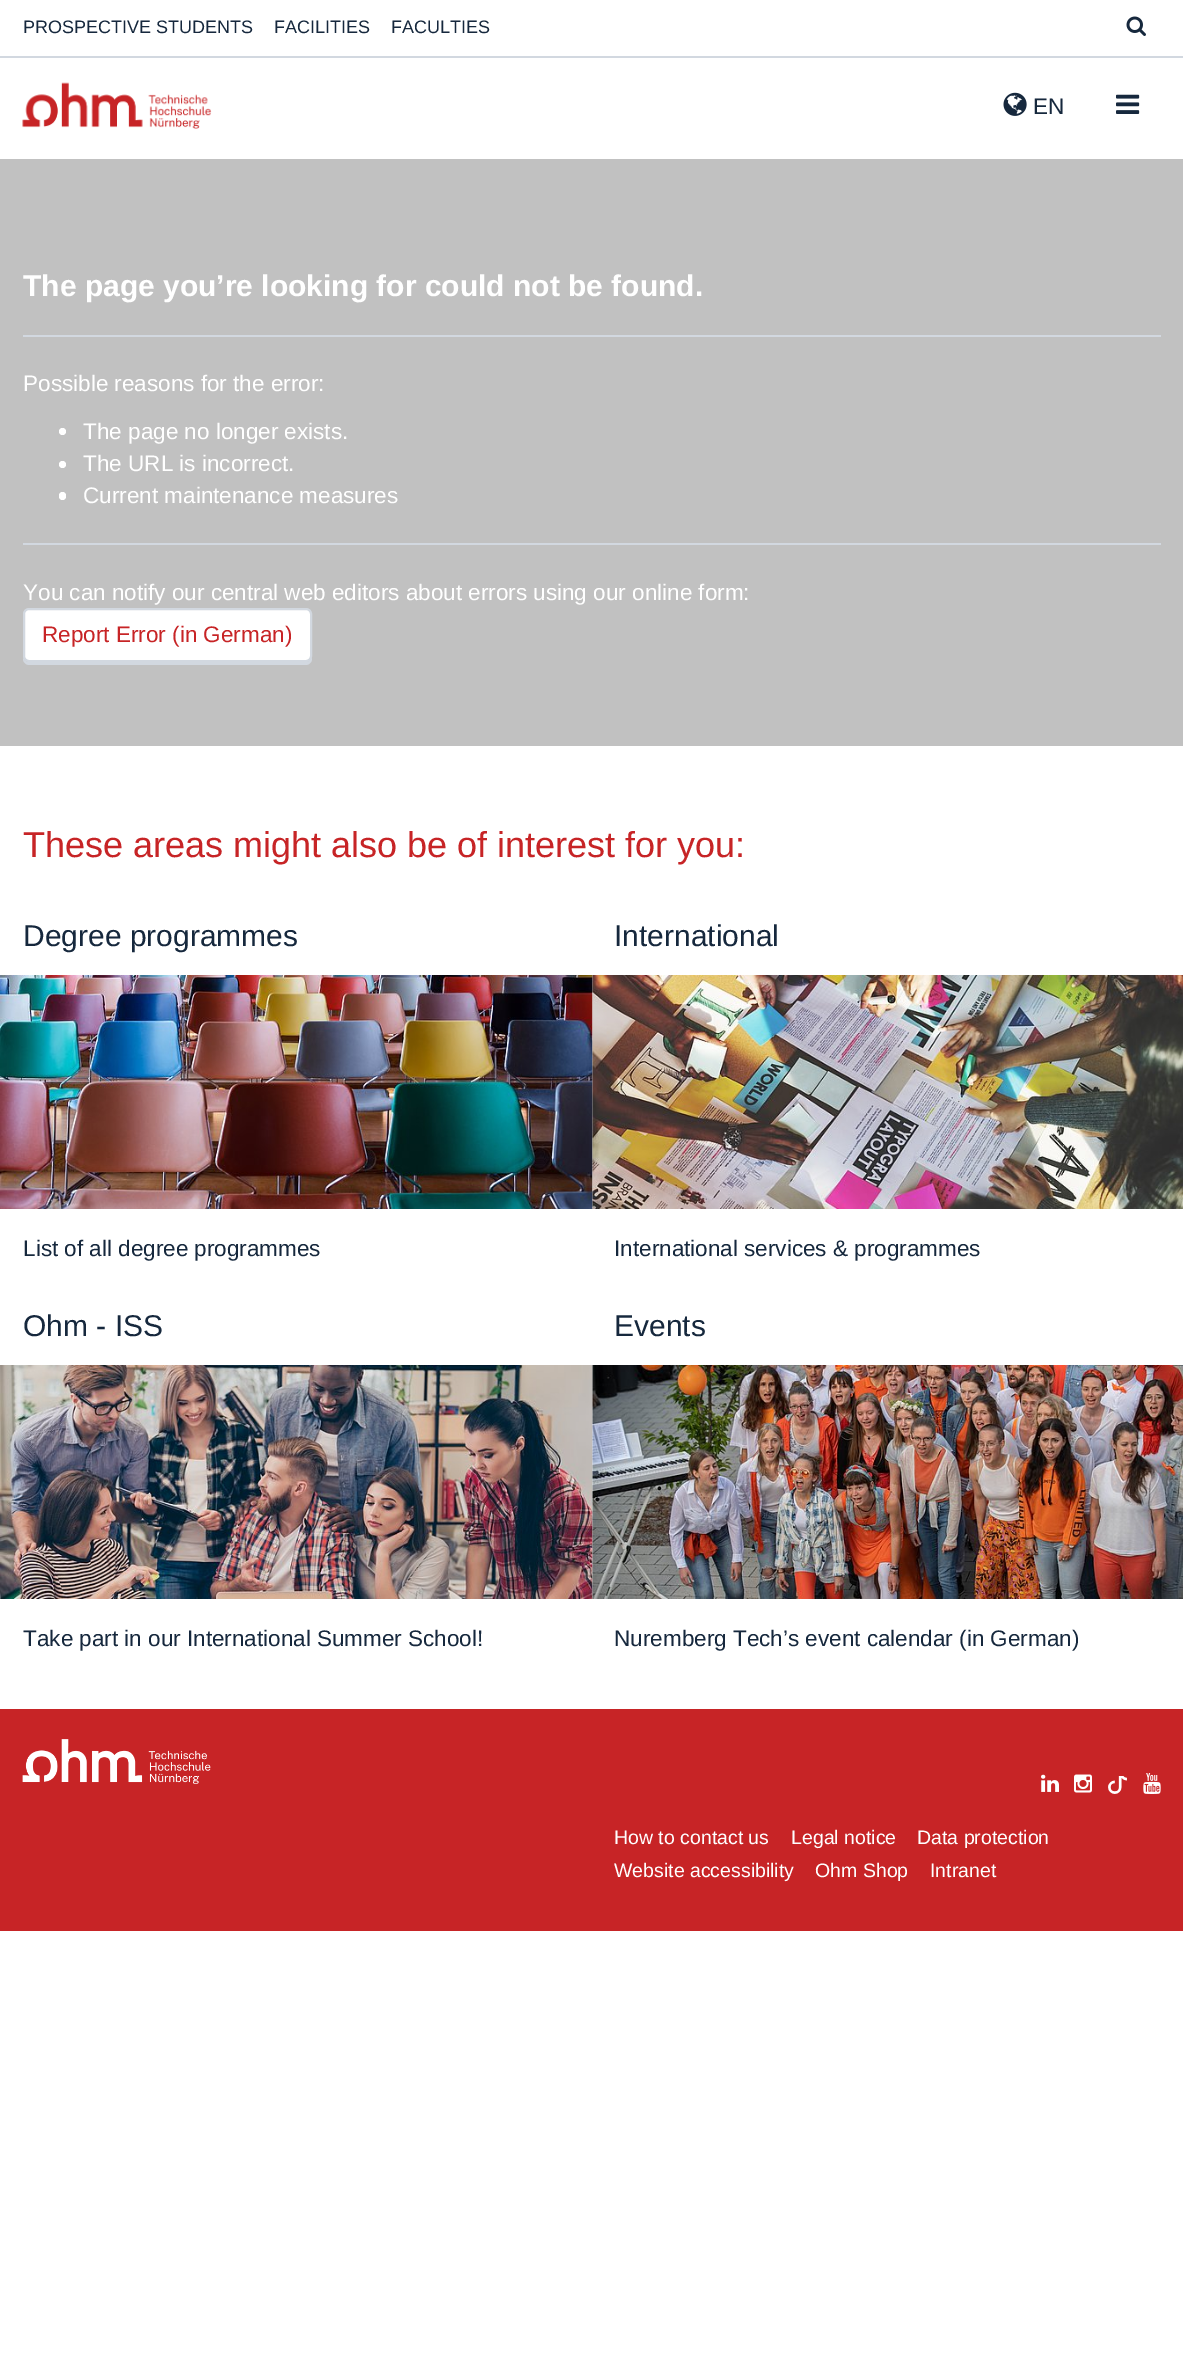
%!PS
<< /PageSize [1183 2377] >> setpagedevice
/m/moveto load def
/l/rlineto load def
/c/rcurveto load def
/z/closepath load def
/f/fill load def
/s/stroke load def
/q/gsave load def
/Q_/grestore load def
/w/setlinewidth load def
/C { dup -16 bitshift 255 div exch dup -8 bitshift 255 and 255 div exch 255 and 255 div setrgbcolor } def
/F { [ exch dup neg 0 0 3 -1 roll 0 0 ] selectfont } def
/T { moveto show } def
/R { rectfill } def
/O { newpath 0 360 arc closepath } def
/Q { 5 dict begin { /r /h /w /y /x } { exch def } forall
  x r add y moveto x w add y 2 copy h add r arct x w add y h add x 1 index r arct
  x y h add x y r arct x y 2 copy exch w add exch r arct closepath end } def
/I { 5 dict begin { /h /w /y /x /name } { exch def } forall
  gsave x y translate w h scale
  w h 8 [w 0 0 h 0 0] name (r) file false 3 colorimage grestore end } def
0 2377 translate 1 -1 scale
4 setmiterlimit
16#FFFFFF C
0 0 1183 2377 R
16#D2D8E0 C
0 56 1183 2 R
/LiberationSans-Regular 18 F
16#16283D C
(PROSPECTIVE STUDENTS) 23 33 T
(FACILITIES) 274 33 T
(FACULTIES) 391 33 T
(1.rgb) 1126 16 20 20 I
(2.rgb) 22 82 190 47 I
(3.rgb) 1003 92 24 24 I
/LiberationSans-Regular 22.5 F
(EN) 1033 114 T
(4.rgb) 1116 94 24 20 I
16#C1C1C1 C
0 159 1183 587 R
/LiberationSans-Bold 30 F
16#FFFFFF C
(The page you’re looking for could not be found.) 23 296 T
16#D2D8E0 C
23 335 1138 2 R
/LiberationSans-Regular 22.5 F
16#FFFFFF C
(Possible reasons for the error:) 23 391 T
62.5 431.5 3.5 O f
(The page no longer exists.) 83 439 T
62.5 464.5 3.5 O f
(The URL is incorrect.) 83 471 T
59 492 7 8 3.5 Q f
(Current maintenance measures) 83 503 T
16#D2D8E0 C
23 543 1138 2 R
16#FFFFFF C
(You can notify our central web editors about errors using our online form:) 23 600 T
16#D2D8E0 C
23 658 m 0 1 l 0 3 3 6 6 6 c 277 0 l 3 0 6 -3 6 -6 c 0 -3 l 0 3 -3 6 -6 6 c -278 0 l -2 0 -4 -2 -5 -4 c z f
16#FFFFFF C
24 609 287 52 5 Q q f Q_
16#D2D8E0 C
2 w
s
16#C72426 C
(Report Error \(in German\)) 42 642 T
/LiberationSans-Regular 36 F
(These areas might also be of interest for you:) 23 857 T
/LiberationSans-Regular 30 F
16#16283D C
(Degree programmes) 23 946 T
(5.rgb) 0 975 593 234 I
/LiberationSans-Regular 22.5 F
(List of all degree programmes) 23 1256 T
/LiberationSans-Regular 30 F
(International) 614 946 T
(6.rgb) 592 975 591 234 I
/LiberationSans-Regular 22.5 F
(International services & programmes) 614 1256 T
/LiberationSans-Regular 30 F
(Ohm - ISS) 23 1336 T
(7.rgb) 0 1365 593 234 I
/LiberationSans-Regular 22.5 F
(Take part in our International Summer School!) 23 1646 T
/LiberationSans-Regular 30 F
(Events) 614 1336 T
(8.rgb) 592 1365 591 234 I
/LiberationSans-Regular 22.5 F
(Nuremberg Tech’s event calendar \(in German\)) 614 1646 T
16#C72426 C
0 1709 1183 222 R
(9.rgb) 22 1739 189 45 I
(10.rgb) 1041 1774 18 18 I
(11.rgb) 1074 1774 18 19 I
(12.rgb) 1108 1776 19 18 I
(13.rgb) 1143 1773 18 21 I
/LiberationSans-Regular 19.5 F
16#FFFFFF C
(How to contact us) 614 1844 T
(Legal notice) 791 1844 T
(Data protection) 917 1844 T
(Website accessibility) 614 1877 T
(Ohm Shop) 815 1877 T
(Intranet) 930 1877 T
showpage
